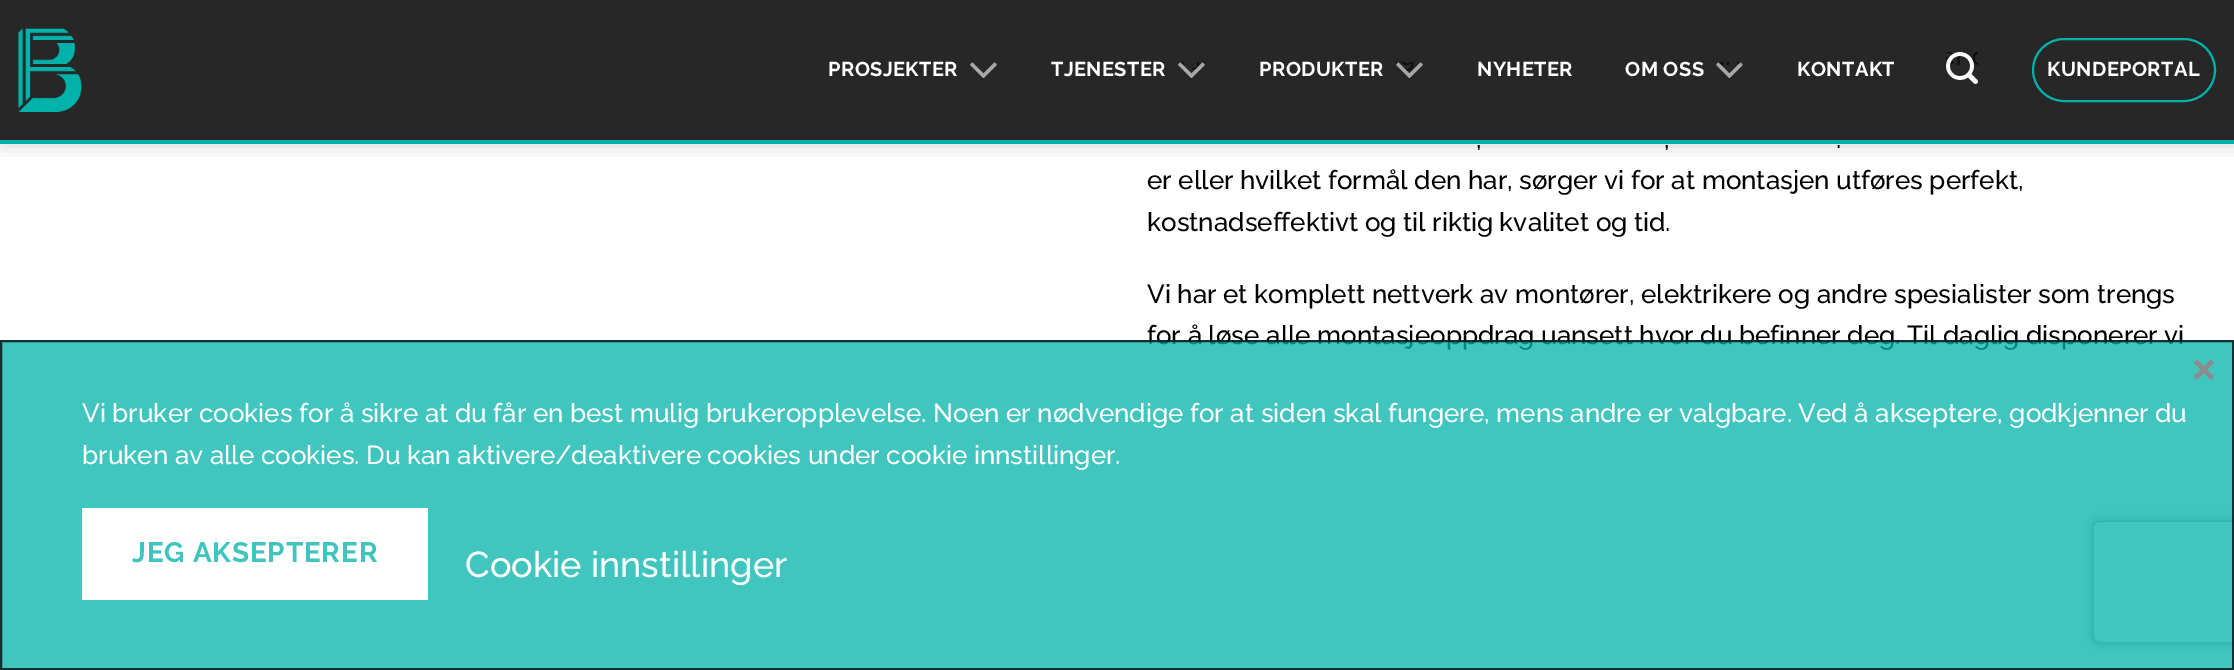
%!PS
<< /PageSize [2234 670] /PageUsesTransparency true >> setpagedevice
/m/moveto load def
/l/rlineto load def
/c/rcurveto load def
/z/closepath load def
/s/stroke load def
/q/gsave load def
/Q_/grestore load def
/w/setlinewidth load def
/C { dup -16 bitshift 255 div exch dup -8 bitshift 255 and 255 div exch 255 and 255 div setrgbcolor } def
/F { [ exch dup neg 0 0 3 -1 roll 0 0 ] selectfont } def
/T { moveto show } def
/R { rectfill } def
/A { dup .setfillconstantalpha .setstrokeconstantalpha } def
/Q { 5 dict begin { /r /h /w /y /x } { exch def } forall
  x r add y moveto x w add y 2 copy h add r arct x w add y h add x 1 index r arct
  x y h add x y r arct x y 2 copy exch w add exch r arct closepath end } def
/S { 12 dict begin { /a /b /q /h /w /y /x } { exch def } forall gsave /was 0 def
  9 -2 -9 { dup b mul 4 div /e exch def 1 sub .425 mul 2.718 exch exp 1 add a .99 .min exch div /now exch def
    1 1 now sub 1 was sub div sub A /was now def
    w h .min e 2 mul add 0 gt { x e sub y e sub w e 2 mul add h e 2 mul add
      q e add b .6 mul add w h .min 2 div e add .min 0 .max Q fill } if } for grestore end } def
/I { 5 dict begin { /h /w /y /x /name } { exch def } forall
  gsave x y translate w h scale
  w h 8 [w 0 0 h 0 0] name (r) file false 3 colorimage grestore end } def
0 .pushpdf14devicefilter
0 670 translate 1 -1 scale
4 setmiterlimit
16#FFFFFF C
0 0 2234 670 R
q
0 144 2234 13 rectclip
16#000000 C
2 2 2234 144 0 10 .15 S
Q_
16#00B2A9 C
0 140 2234 4 R
0.9 A
16#0F0F0F C
0 0 2234 140 R
1 A
(1.rgb) 18 28 64 84 I
/Raleway-Bold 20 F
16#FFFFFF C
828 76 m .4 0 (PROSJEKTER) ashow
(2.rgb) 970 62 27 16 I
1051 76 m .4 0 (TJENESTER) ashow
(3.rgb) 1178 62 27 16 I
1259 76 m .4 0 (PRODUKTER) ashow
(4.rgb) 1396 62 27 16 I
1477 76 m .4 0 (NYHETER) ashow
1625 76 m .4 0 (OM OSS) ashow
(5.rgb) 1716 62 27 16 I
1797 76 m .4 0 (KONTAKT) ashow
(6.rgb) 1946 52 32 32 I
16#00B2A9 C
2 w
2033 39 182 62 31 Q s
16#FFFFFF C
2047 76 m .4 0 (KUNDEPORTAL) ashow
/Raleway-Medium 26 F
16#000000 C
(,) 1476 148 T
(,) 1664 148 T
(.) 1836 148 T
(er eller hvilket formål den har, sørger vi for at montasjen utføres perfekt,) 1147 189 T
(kostnadseffektivt og til riktig kvalitet og tid.) 1147 231 T
(Vi har et komplett nettverk av montører, elektrikere og andre spesialister som trengs) 1147 303 T
(for å løse alle montasjeoppdrag uansett hvor du befinner deg. Til daglig disponerer vi) 1147 344 T
q
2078 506 m 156 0 l 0 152 l -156 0 l z 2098 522 m 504 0 l 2 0 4 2 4 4 c 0 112 l 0 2 -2 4 -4 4 c -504 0 l -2 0 -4 -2 -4 -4 c 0 -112 l 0 -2 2 -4 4 -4 c z eoclip newpath
16#808080 C
2094 522 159 120 4 5 1 S
Q_
0.75 A
16#00B2A9 C
0 340 2234 330 R
16#000000 C
1 341 2232 328 rectstroke
/Raleway-Medium 60 F
1 A
16#8C8C8C C
(×) 2190 386 T
/Raleway-Medium 26 F
16#FFFFFF C
(Vi bruker cookies for å sikre at du får en best mulig brukeropplevelse. Noen er nødvendige for at siden skal fungere, mens andre er valgbare. Ved å akseptere, godkjenner du) 82 422 T
(bruken av alle cookies. Du kan aktivere/deaktivere cookies under cookie innstillinger.) 82 464 T
82 508 346 92 R
/Raleway-Bold 28 F
16#3FC5BE C
132 562 m .8 0 (JEG AKSEPTERER) ashow
/Raleway-Medium 36 F
16#FFFFFF C
(Cookie innstillinger) 465 577 T
.poppdf14devicefilter showpage
